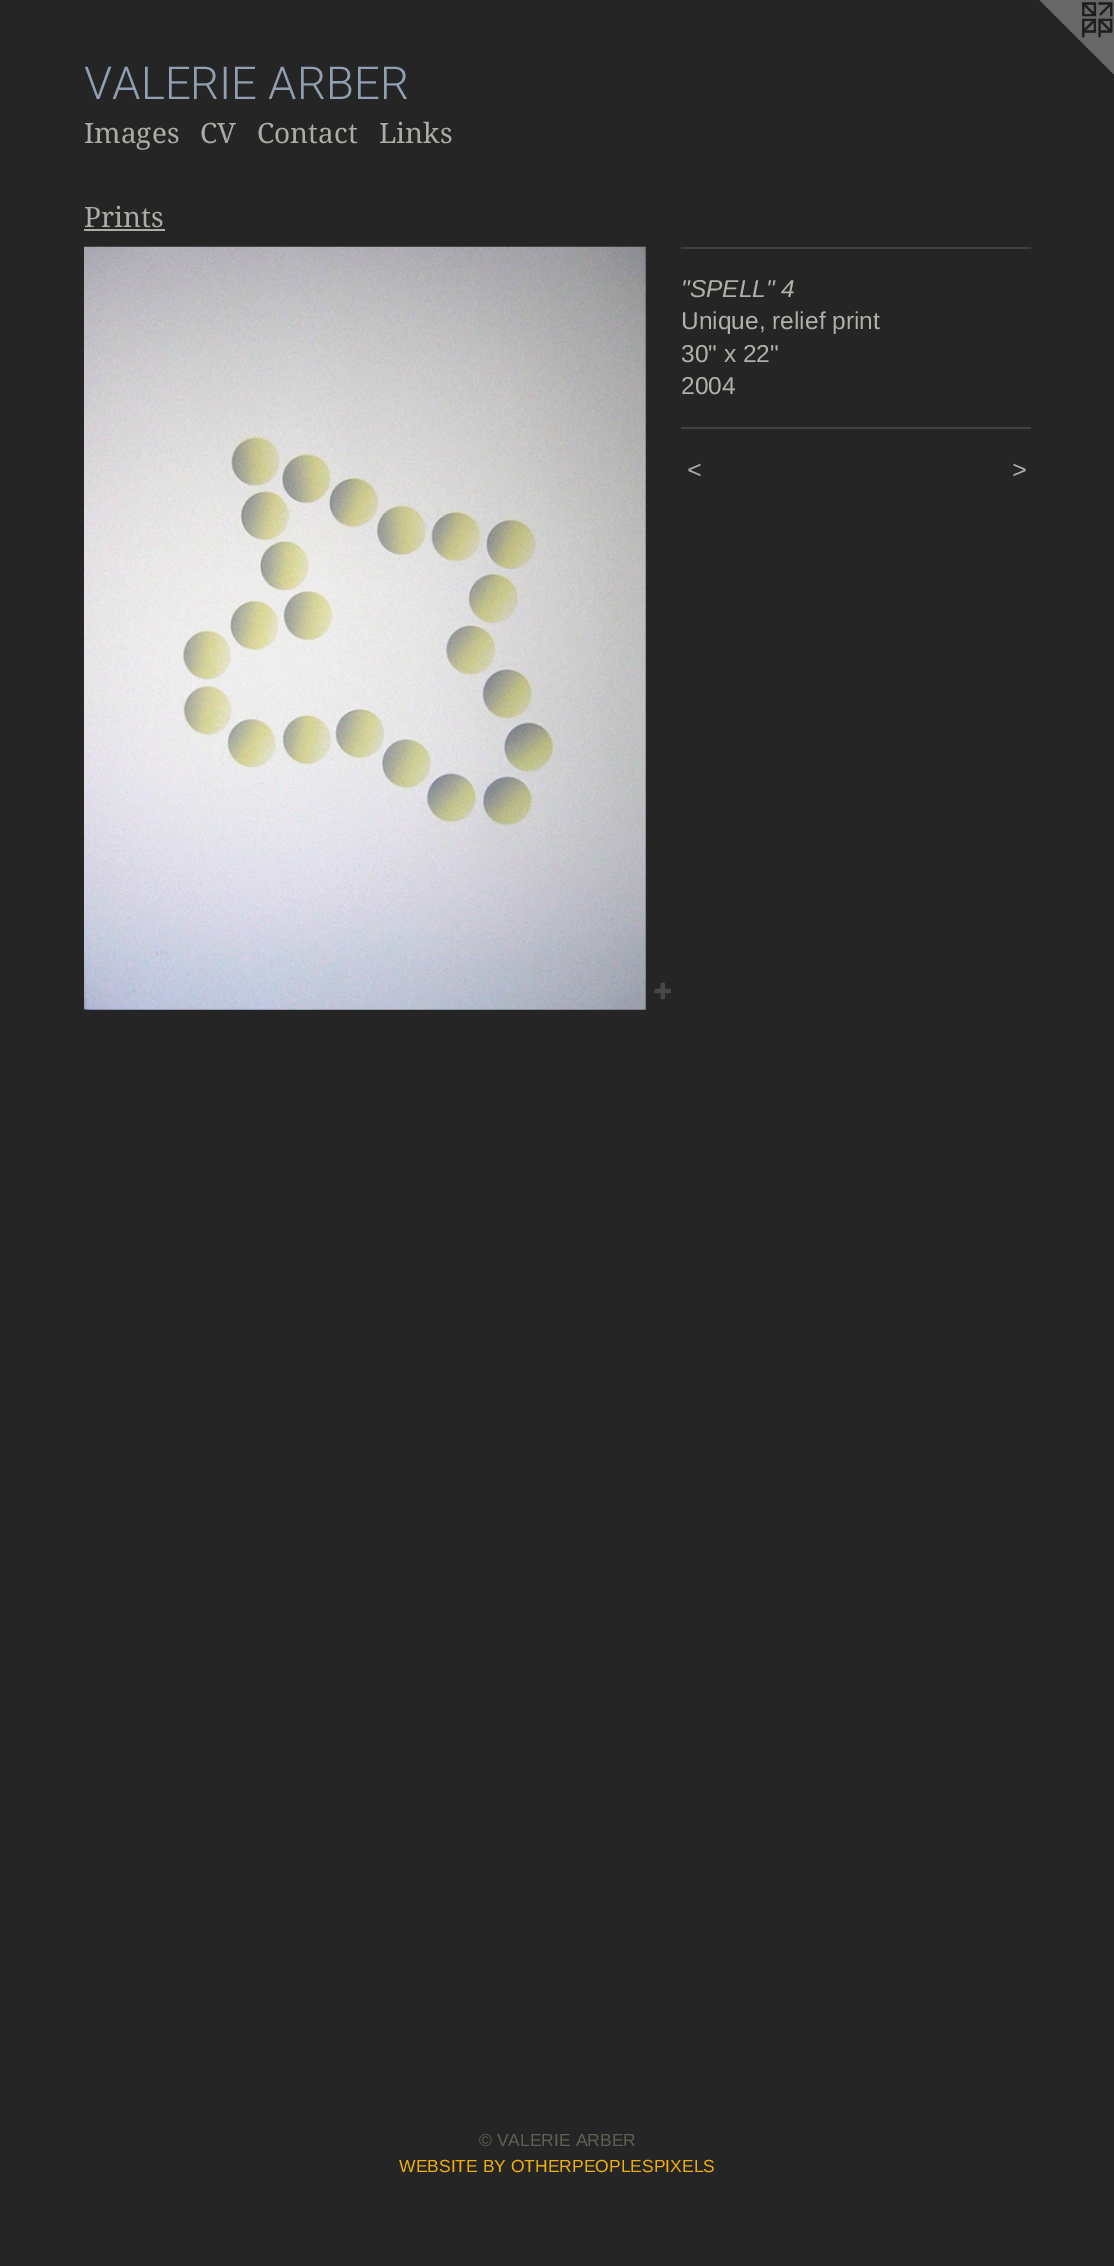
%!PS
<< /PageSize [1114 2266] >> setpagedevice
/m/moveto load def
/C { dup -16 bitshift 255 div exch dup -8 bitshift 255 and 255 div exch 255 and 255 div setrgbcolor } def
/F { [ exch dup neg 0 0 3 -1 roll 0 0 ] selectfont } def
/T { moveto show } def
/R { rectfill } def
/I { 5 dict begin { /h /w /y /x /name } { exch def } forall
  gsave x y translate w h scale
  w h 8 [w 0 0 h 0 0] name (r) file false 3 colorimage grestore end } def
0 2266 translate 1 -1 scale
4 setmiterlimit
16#252525 C
0 0 1114 2266 R
(1.rgb) 1039 0 75 75 I
/Roboto-Light 45.5 F
16#909FB2 C
(VALERIE ARBER) 84 99 T
/DroidSerif-Regular 28 F
16#AAADA4 C
(Images) 84 143 T
(CV) 200 143 T
(Contact) 257 143 T
(Links) 379 143 T
(Prints) 84 227 T
84 229 81 2 R
(2.rgb) 84 246 562 764 I
(3.rgb) 654 982 17 18 I
16#41413F C
681 247 350 2 R
/LiberationSans-Italic 24.5 F
16#B2B0A9 C
("SPELL" 4) 681 297 T
/LiberationSans-Regular 24.5 F
(Unique, relief print) 681 329 T
(30" x 22") 681 362 T
(2004) 681 394 T
16#41413F C
681 427 350 2 R
/LiberationSans-Italic 24.5 F
16#B2B0A9 C
687 478 m 2 0 (<) ashow
1012 478 m 2 0 (>) ashow
/LiberationSans-Regular 17.5 F
16#635F54 C
(© VALERIE ARBER) 479 2146 T
16#F1AF0E C
(WEBSITE BY OTHERPEOPLESPIXELS) 399 2172 T
showpage
